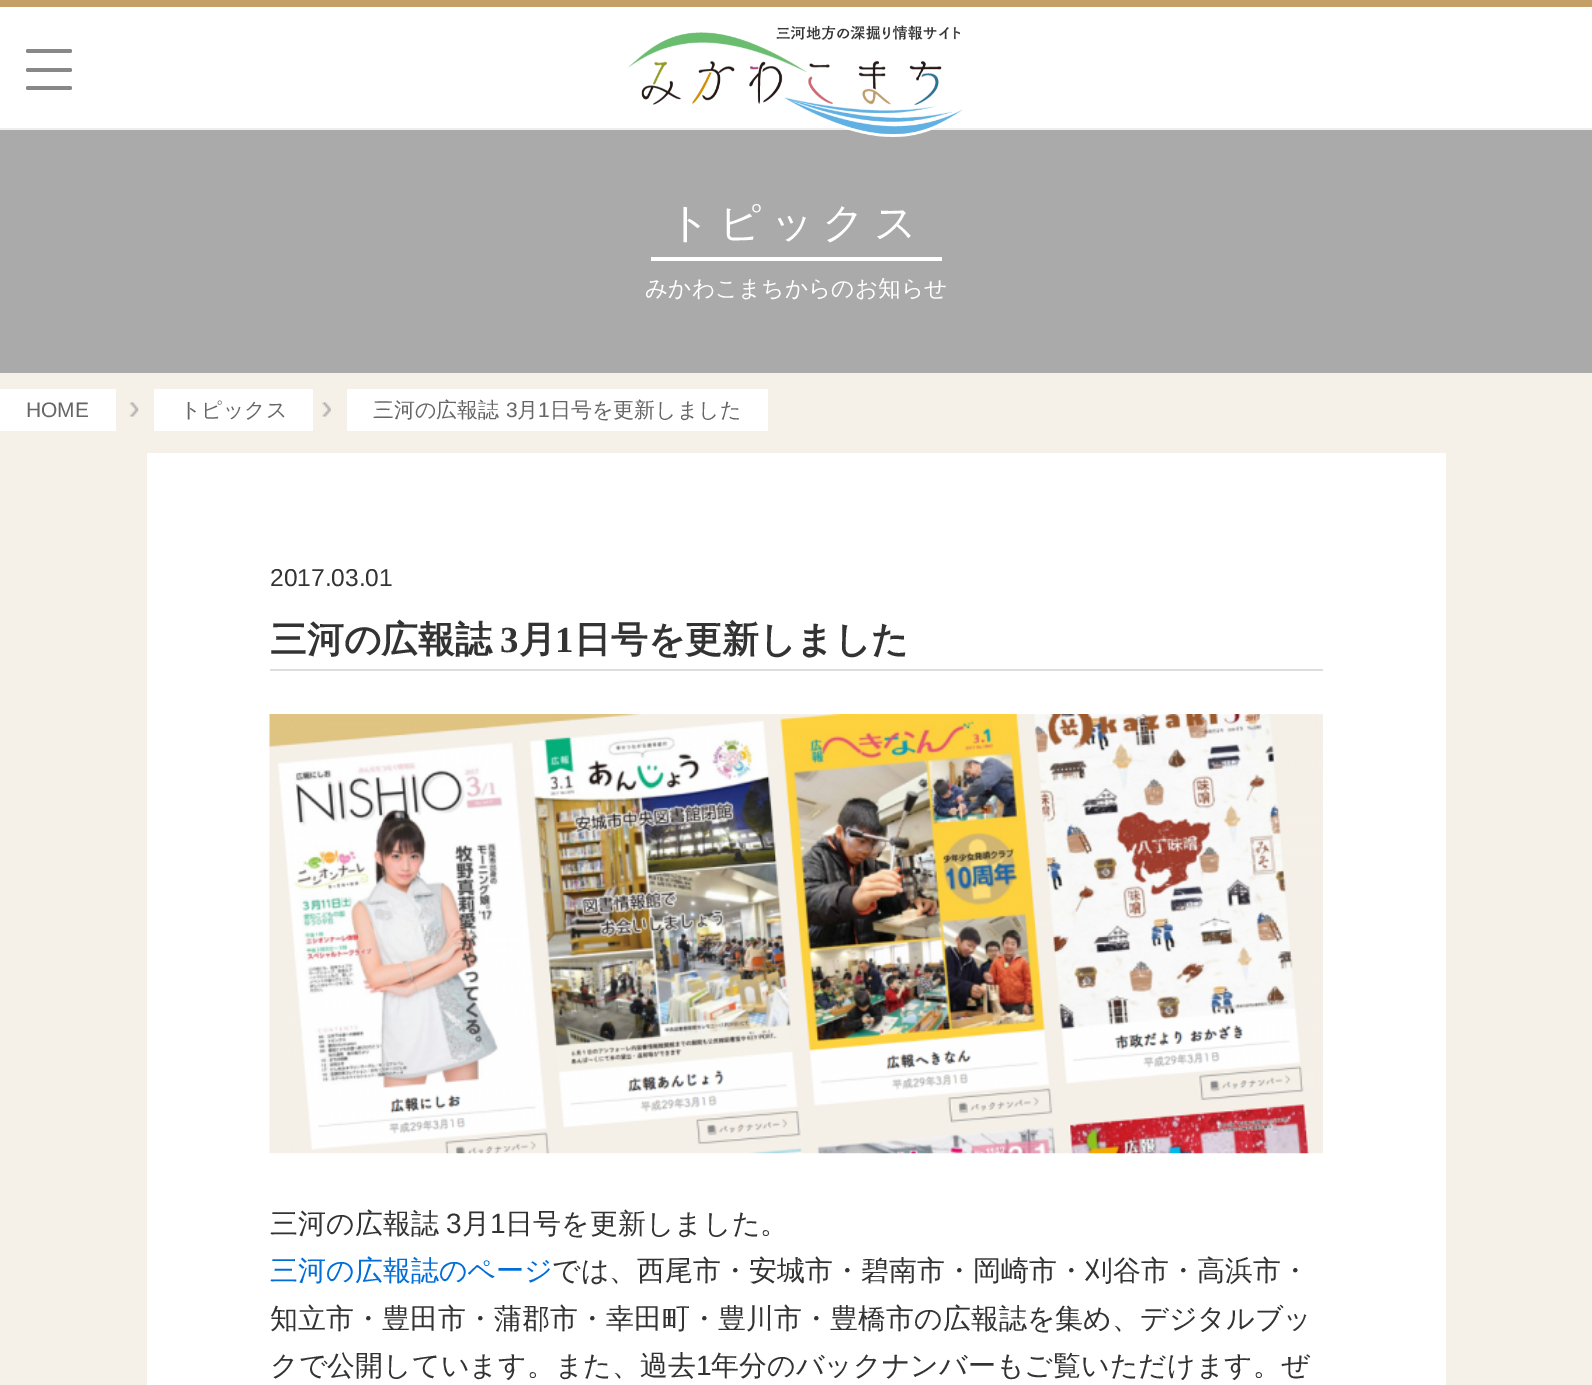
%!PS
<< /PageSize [1592 1385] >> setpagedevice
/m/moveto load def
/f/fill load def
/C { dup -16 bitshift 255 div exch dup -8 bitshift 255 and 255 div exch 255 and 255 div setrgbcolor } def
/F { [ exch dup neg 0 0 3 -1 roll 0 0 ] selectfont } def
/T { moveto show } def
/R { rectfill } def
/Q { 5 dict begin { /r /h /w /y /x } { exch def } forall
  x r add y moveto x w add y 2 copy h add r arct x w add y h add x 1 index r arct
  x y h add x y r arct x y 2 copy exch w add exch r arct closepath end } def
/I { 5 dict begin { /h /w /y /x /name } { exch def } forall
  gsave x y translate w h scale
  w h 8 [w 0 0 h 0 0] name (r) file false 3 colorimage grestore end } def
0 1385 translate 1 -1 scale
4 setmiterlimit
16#F5F0E8 C
0 0 1592 1385 R
16#FFFFFF C
0 7 1592 121 R
16#C4A067 C
0 0 1592 7 R
16#EEEEEE C
0 128 1592 2 R
16#888888 C
26 49 46 4 2 Q f
26 68 46 4 2 Q f
26 86 46 4 2 Q f
16#AAAAAA C
0 130 1592 243 R
(1.rgb) 628 25 334 112 I
16#FFFFFF C
651 257 291 4 R
/WenQuanYiZenHei-Medium 42 F
668 237 m 8.5 0 (トピックス) ashow
/WenQuanYiZenHei-Medium 22.75 F
(みかわこまちからのお知らせ) 645 296 T
0 389 116 42 R
/LiberationSans-Regular 21 F
16#666666 C
(HOME) 26 417 T
(2.rgb) 129 402 10 15 I
16#FFFFFF C
154 389 159 42 R
/WenQuanYiZenHei-Medium 21 F
16#666666 C
(トピックス) 180 417 T
(3.rgb) 322 402 9 15 I
16#FFFFFF C
347 389 421 42 R
16#666666 C
(三河の広報誌) 373 417 T
/LiberationSans-Regular 21 F
(3) 506 417 T
/WenQuanYiZenHei-Medium 21 F
(月) 517 417 T
/LiberationSans-Regular 21 F
(1) 538 417 T
/WenQuanYiZenHei-Medium 21 F
(日号を更新しました) 550 417 T
16#FFFFFF C
147 453 1299 932 R
/LiberationSans-Regular 24.5 F
16#333333 C
(2017.03.01) 270 586 T
16#DDDDDD C
270 669 1053 2 R
/WenQuanYiZenHei-Bold 36.75 F
16#333333 C
(三河の広報誌) 270 652 T
/LiberationSerif-Bold 36.75 F
(3) 500 652 T
/WenQuanYiZenHei-Bold 36.75 F
(月) 519 652 T
/LiberationSerif-Bold 36.75 F
(1) 555 652 T
/WenQuanYiZenHei-Bold 36.75 F
(日号を更新しました) 574 652 T
(4.rgb) 269 714 1054 440 I
/WenQuanYiZenHei-Medium 28 F
(三河の広報誌) 270 1233 T
/LiberationSans-Regular 28 F
(3) 446 1233 T
/WenQuanYiZenHei-Medium 28 F
(月) 462 1233 T
/LiberationSans-Regular 28 F
(1) 490 1233 T
/WenQuanYiZenHei-Medium 28 F
(日号を更新しました。) 505 1233 T
16#006DD9 C
(三河の広報誌のページ) 270 1280 T
16#333333 C
(では、西尾市・安城市・碧南市・岡崎市・刈谷市・高浜市・) 552 1280 T
(知立市・豊田市・蒲郡市・幸田町・豊川市・豊橋市の広報誌を集め、デジタルブッ) 270 1328 T
(クで公開しています。また、過去) 270 1375 T
/LiberationSans-Regular 28 F
(1) 696 1375 T
/WenQuanYiZenHei-Medium 28 F
(年分のバックナンバーもご覧いただけます。ぜ) 711 1375 T
showpage
